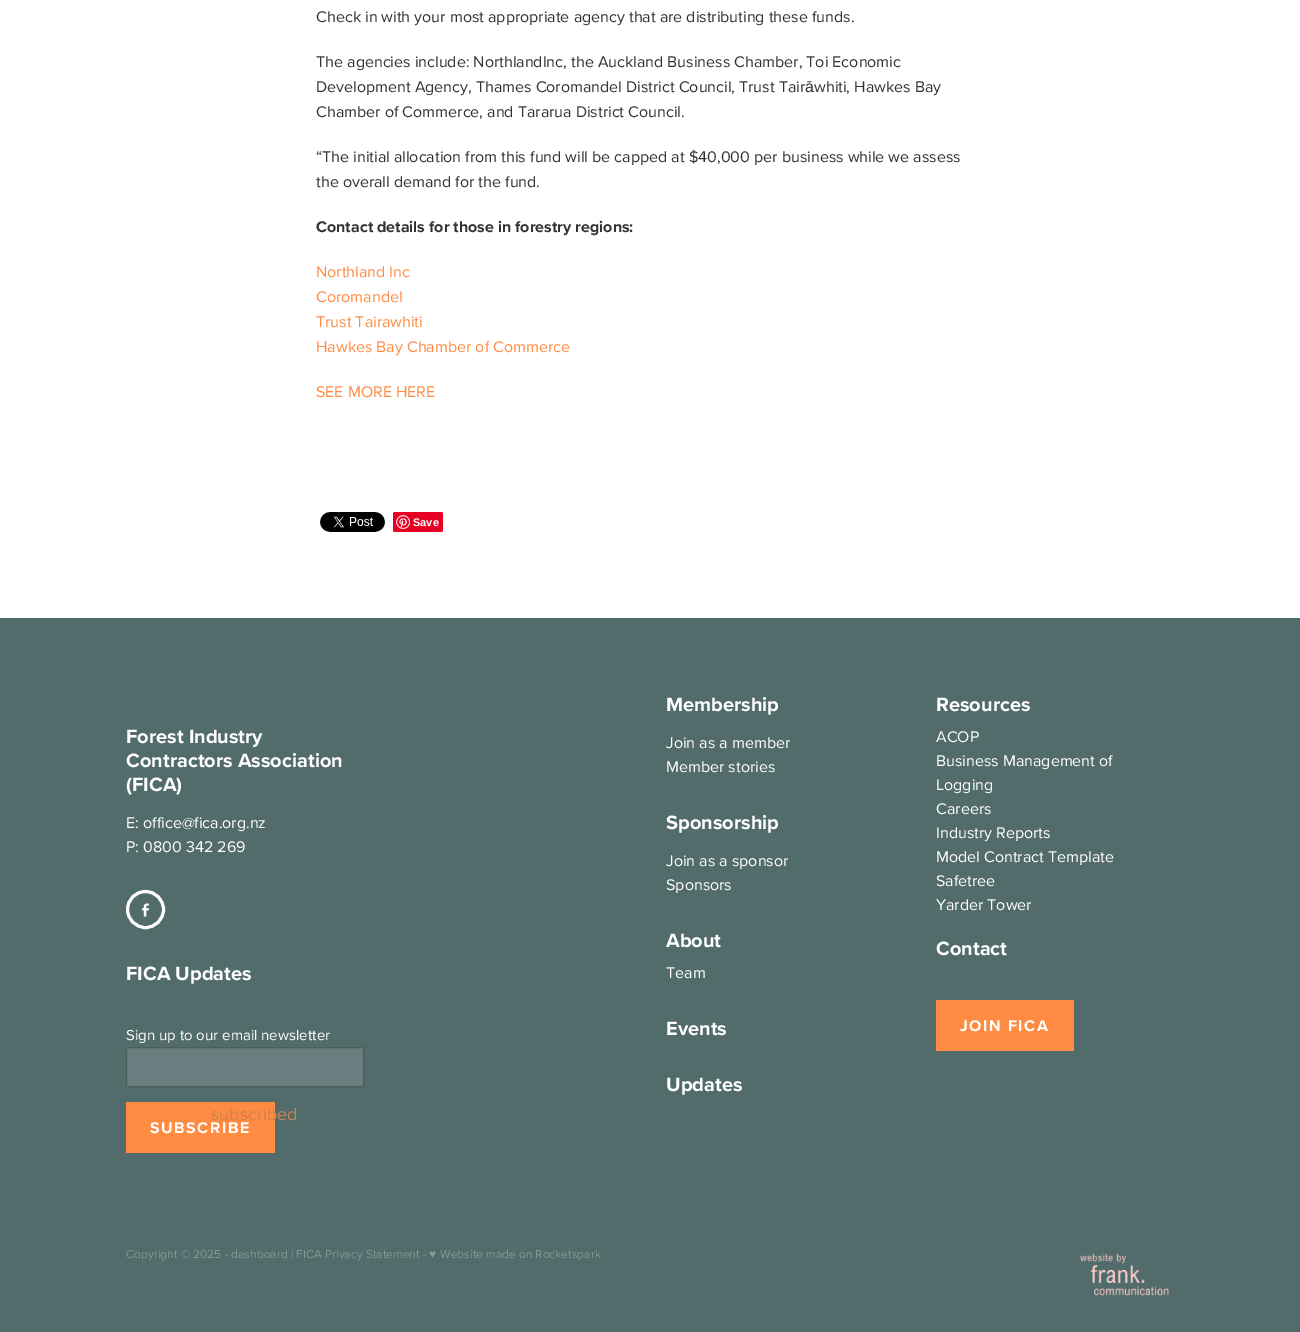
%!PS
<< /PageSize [1300 1332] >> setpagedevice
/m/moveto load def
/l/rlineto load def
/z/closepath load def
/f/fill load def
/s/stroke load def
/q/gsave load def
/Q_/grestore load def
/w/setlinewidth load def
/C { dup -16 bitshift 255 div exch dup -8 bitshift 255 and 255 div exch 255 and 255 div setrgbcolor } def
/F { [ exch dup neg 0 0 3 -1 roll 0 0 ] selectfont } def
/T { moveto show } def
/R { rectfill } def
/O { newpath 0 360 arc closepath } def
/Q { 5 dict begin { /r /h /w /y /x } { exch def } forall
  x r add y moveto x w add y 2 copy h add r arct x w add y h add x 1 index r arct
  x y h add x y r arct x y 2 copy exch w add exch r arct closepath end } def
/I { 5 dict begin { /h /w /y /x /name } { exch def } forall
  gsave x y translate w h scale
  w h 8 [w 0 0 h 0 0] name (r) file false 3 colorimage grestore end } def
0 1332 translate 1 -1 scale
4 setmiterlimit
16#FFFFFF C
0 0 1300 1332 R
/ProximaNova-Regular 16 F
16#333333 C
(Check in with your most appropriate agency that are distributing these funds.) 316 22 T
(The agencies include: NorthlandInc, the Auckland Business Chamber, Toi Economic) 316 67 T
(Development Agency, Thames Coromandel District Council, Trust Tair) 316 92 T
/LiberationSans-Regular 16 F
(ā) 805 92 T
/ProximaNova-Regular 16 F
(whiti, Hawkes Bay) 814 92 T
(Chamber of Commerce, and Tararua District Council.) 316 117 T
(“The initial allocation from this fund will be capped at $40,000 per business while we assess) 316 162 T
(the overall demand for the fund.) 316 187 T
/ProximaNova-Bold 16 F
(Contact details for those in forestry regions:) 316 232 T
/ProximaNova-Regular 16 F
16#FF8C42 C
(Northland Inc) 316 277 T
(Coromandel) 316 302 T
(Trust Tairawhiti) 316 327 T
(Hawkes Bay Chamber of Commerce) 316 352 T
(SEE MORE HERE) 316 397 T
(1.rgb) 320 512 65 20 I
16#E60023 C
393 512 50 20 2 Q f
(2.rgb) 396 515 14 14 I
/LiberationSans-Bold 11 F
16#FFFFFF C
(Save) 413 526 T
16#526B6B C
0 618 1300 714 R
/ProximaNova-Bold 20 F
16#FFFFFF C
(Forest Industry) 126 743 T
(Contractors Association) 126 767 T
(\(FICA\)) 126 791 T
/ProximaNova-Regular 16 F
(E: office@fica.org.nz) 126 828 T
(P: 0800 342 269) 126 852 T
3 w
145.5 909.5 18 O s
(3.rgb) 142 903 7 14 I
/ProximaNova-Bold 20 F
(FICA Updates) 126 980 T
/ProximaNova-Regular 15 F
(Sign up to our email newsletter) 126 1040 T
16#697E7E C
126.5 1047.5 m 237 0 l 0 39 l -237 0 l z q f Q_
16#4F5C5C C
1 w
s
16#FF8C42 C
126 1102 149 51 R
/ProximaNova-Bold 16 F
16#FFFFFF C
150 1133 m 1.5 0 (SUBSCRIBE) ashow
q
176 1105 24 19 rectclip
16#FF8C42 C
200 1107.5 m -16.5 16 l -8 -8 l 3 -3 l 5 5 l 13.5 -13 l z f
Q_
/ProximaNova-Regular 18 F
16#CE834E C
(subscribed) 211 1120 T
/ProximaNova-Bold 20 F
16#FFFFFF C
(Membership) 666 711 T
/ProximaNova-Regular 16 F
(Join as a member) 666 748 T
(Member stories) 666 772 T
/ProximaNova-Bold 20 F
(Sponsorship) 666 829 T
/ProximaNova-Regular 16 F
(Join as a sponsor) 666 866 T
(Sponsors) 666 890 T
/ProximaNova-Bold 20 F
(About) 666 947 T
/ProximaNova-Regular 16 F
(Team) 666 978 T
/ProximaNova-Bold 20 F
(Events) 666 1035 T
(Updates) 666 1091 T
(Resources) 936 711 T
/ProximaNova-Regular 16 F
(ACOP) 936 742 T
(Business Management of) 936 766 T
(Logging) 936 790 T
(Careers) 936 814 T
(Industry Reports) 936 838 T
(Model Contract Template) 936 862 T
(Safetree) 936 886 T
(Yarder Tower) 936 910 T
/ProximaNova-Bold 20 F
(Contact) 936 955 T
16#FF8C42 C
936 1000 138 51 R
/ProximaNova-Bold 16 F
16#FFFFFF C
960 1031 m 1.5 0 (JOIN FICA) ashow
/ProximaNova-Regular 12 F
16#869797 C
(Copyright © 2025 - dashboard | FICA Privacy Statement -) 126 1258 T
/LiberationSans-Regular 12 F
(♥) 429 1258 T
/ProximaNova-Regular 12 F
(Website made on Rocketspark) 440 1258 T
(4.rgb) 1080 1253 89 43 I
showpage
